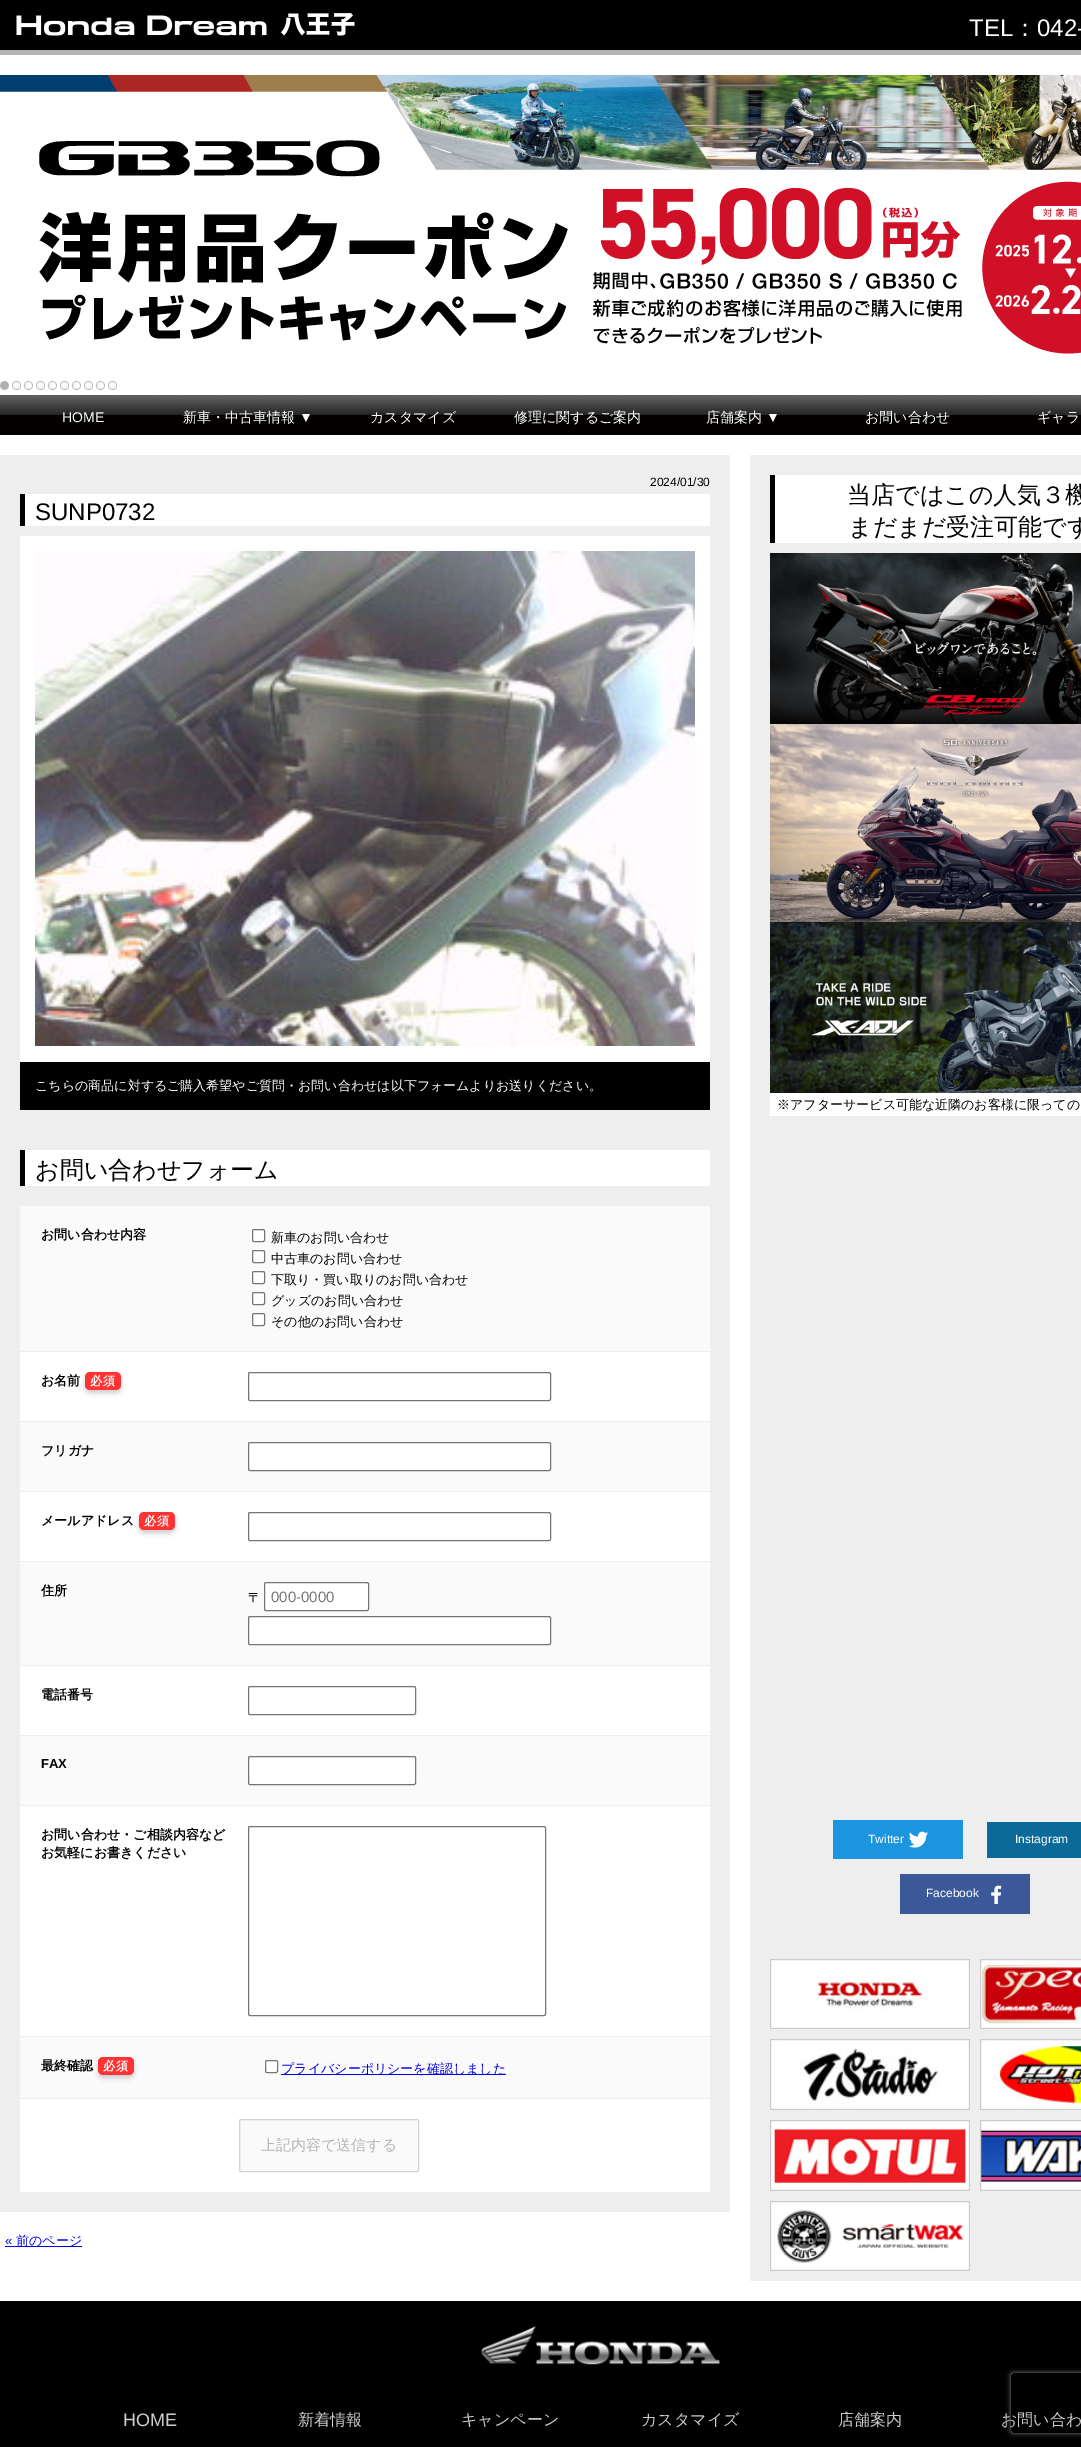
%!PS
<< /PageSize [1081 2447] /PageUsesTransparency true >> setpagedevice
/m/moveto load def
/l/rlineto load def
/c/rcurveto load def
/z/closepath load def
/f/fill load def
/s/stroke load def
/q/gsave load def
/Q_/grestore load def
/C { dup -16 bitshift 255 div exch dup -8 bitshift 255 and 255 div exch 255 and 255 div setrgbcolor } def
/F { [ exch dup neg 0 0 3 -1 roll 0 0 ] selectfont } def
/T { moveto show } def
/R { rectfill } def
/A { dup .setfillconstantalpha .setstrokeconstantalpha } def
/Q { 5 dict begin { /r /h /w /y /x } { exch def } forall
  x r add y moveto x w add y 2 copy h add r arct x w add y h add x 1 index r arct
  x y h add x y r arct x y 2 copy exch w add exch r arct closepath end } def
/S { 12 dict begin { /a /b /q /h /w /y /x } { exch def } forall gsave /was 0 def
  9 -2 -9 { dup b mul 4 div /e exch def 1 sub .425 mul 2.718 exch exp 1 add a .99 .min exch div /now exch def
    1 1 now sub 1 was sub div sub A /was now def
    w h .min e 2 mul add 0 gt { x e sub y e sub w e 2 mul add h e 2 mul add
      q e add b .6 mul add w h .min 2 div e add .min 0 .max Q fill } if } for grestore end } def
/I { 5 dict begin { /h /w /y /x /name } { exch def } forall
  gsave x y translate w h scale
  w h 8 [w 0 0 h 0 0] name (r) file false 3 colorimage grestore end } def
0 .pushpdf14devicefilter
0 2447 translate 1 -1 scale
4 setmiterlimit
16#FFFFFF C
0 0 1081 2447 R
16#000000 C
0 0 1081 50 R
16#B4B4B4 C
0 50 1081 5 R
(1.rgb) 16 13 339 23 I
/LiberationSans-Regular 24 F
16#FFFFFF C
(TEL) 969 36 T
/WenQuanYiZenHei-Medium 24 F
(：) 1013 36 T
/LiberationSans-Regular 24 F
(042-) 1037 36 T
(2.rgb) 0 75 1081 279 I
(3.rgb) 0 381 9 9 I
(4.rgb) 12 381 9 9 I
(4.rgb) 24 381 9 9 I
(4.rgb) 36 381 9 9 I
(4.rgb) 48 381 9 9 I
(4.rgb) 60 381 9 9 I
(4.rgb) 72 381 9 9 I
(4.rgb) 84 381 9 9 I
(4.rgb) 96 381 9 9 I
(4.rgb) 108 381 9 9 I
(5.rgb) 0 395 1081 40 I
/LiberationSans-Regular 14 F
(HOME) 62 422 T
(6.rgb) 165 395 161 1 I
/WenQuanYiZenHei-Medium 14 F
(新車・中古車情報) 183 422 T
/LiberationSans-Regular 14 F
(▼) 299 422 T
/WenQuanYiZenHei-Medium 14 F
(カスタマイズ) 370 422 T
(6.rgb) 495 395 161 1 I
(修理に関するご案内) 514 422 T
(店舗案内) 706 422 T
/LiberationSans-Regular 14 F
(▼) 766 422 T
(6.rgb) 825 395 161 1 I
/WenQuanYiZenHei-Medium 14 F
(お問い合わせ) 865 422 T
(ギャラ) 1037 422 T
16#EEEEEE C
0 455 730 1757 R
/LiberationSans-Regular 12 F
16#000000 C
(2024/01/30) 650 486 T
16#FFFFFF C
25 494 685 32 R
16#000000 C
20 494 5 32 R
/LiberationSans-Regular 24 F
(SUNP0732) 35 520 T
16#FFFFFF C
20 536 690 526 R
(7.rgb) 35 551 660 495 I
16#000000 C
20 1062 690 48 R
/WenQuanYiZenHei-Medium 13 F
16#FFFFFF C
(こちらの商品に対するご購入希望やご質問・お問い合わせは以下フォームよりお送りください。) 35 1090 T
25 1150 685 36 R
16#000000 C
20 1150 5 36 R
/WenQuanYiZenHei-Medium 24 F
(お問い合わせフォーム) 35 1178 T
16#FFFFFF C
20 1352 690 840 R
16#FAFAFA C
20 1206 690 145 R
/WenQuanYiZenHei-Bold 13 F
16#000000 C
(お問い合わせ内容) 41 1239 T
16#FFFFFF C
252.5 1229.5 12 12 1.5 Q q f Q_
16#767676 C
s
/WenQuanYiZenHei-Medium 13 F
16#000000 C
(新車のお問い合わせ) 271 1242 T
16#FFFFFF C
252.5 1250.5 12 12 1.5 Q q f Q_
16#767676 C
s
16#000000 C
(中古車のお問い合わせ) 271 1263 T
16#FFFFFF C
252.5 1271.5 12 12 1.5 Q q f Q_
16#767676 C
s
16#000000 C
(下取り・買い取りのお問い合わせ) 271 1284 T
16#FFFFFF C
252.5 1292.5 12 12 1.5 Q q f Q_
16#767676 C
s
16#000000 C
(グッズのお問い合わせ) 271 1305 T
16#FFFFFF C
252.5 1313.5 12 12 1.5 Q q f Q_
16#767676 C
s
16#000000 C
(その他のお問い合わせ) 271 1326 T
16#EEEEEE C
20 1421 690 1 R
/WenQuanYiZenHei-Bold 13 F
16#000000 C
(お名前) 41 1385 T
16#CCCCCC C
85 1375 36 18 5 2.5 1 S
16#FF3333 C
85 1372 36 18 5 Q f
/WenQuanYiZenHei-Bold 12 F
16#FFFFFF C
90 1385 m 1 0 (必須) ashow
16#767676 C
248.5 1372.5 302 28 1.5 Q s
16#FAFAFA C
20 1422 690 69 R
16#EEEEEE C
20 1491 690 1 R
/WenQuanYiZenHei-Bold 13 F
16#000000 C
(フリガナ) 41 1455 T
16#FFFFFF C
248.5 1442.5 302 28 1.5 Q q f Q_
16#767676 C
s
16#EEEEEE C
20 1561 690 1 R
16#000000 C
(メールアドレス) 41 1525 T
16#CCCCCC C
139 1515 36 18 5 2.5 1 S
16#FF3333 C
139 1512 36 18 5 Q f
/WenQuanYiZenHei-Bold 12 F
16#FFFFFF C
144 1525 m 1 0 (必須) ashow
16#767676 C
248.5 1512.5 302 28 1.5 Q s
16#FAFAFA C
20 1562 690 103 R
16#EEEEEE C
20 1665 690 1 R
/WenQuanYiZenHei-Bold 13 F
16#000000 C
(住所) 41 1595 T
/WenQuanYiZenHei-Medium 13 F
(〒) 248 1602 T
16#FFFFFF C
264.5 1582.5 104 28 1.5 Q q f Q_
16#767676 C
s
/LiberationSans-Regular 15 F
16#757575 C
(000-0000) 271 1602 T
16#FFFFFF C
248.5 1616.5 302 28 1.5 Q q f Q_
16#767676 C
s
16#EEEEEE C
20 1735 690 1 R
/WenQuanYiZenHei-Bold 13 F
16#000000 C
(電話番号) 41 1699 T
16#767676 C
248.5 1686.5 167 28 1.5 Q s
16#FAFAFA C
20 1736 690 69 R
16#EEEEEE C
20 1805 690 1 R
/LiberationSans-Bold 13 F
16#000000 C
(FAX) 41 1768 T
16#FFFFFF C
248.5 1756.5 167 28 1.5 Q q f Q_
16#767676 C
s
16#EEEEEE C
20 2036 690 1 R
/WenQuanYiZenHei-Bold 13 F
16#000000 C
(お問い合わせ・ご相談内容など) 41 1839 T
(お気軽にお書きください) 41 1857 T
16#767676 C
248.5 1826.5 297 189 1.5 Q s
16#FAFAFA C
20 2037 690 61 R
16#EEEEEE C
20 2098 690 1 R
16#000000 C
(最終確認) 41 2070 T
16#CCCCCC C
98 2060 36 18 5 2.5 1 S
16#FF3333 C
98 2057 36 18 5 Q f
/WenQuanYiZenHei-Bold 12 F
16#FFFFFF C
103 2070 m 1 0 (必須) ashow
265.5 2060.5 12 12 1.5 Q q f Q_
16#767676 C
s
16#0000EE C
281 2074 225 1 R
/WenQuanYiZenHei-Medium 13 F
(プライバシーポリシーを確認しました) 281 2073 T
16#FAFAFA C
239.5 2119.5 179 52 1.5 Q q f Q_
16#D2D2D2 C
s
/WenQuanYiZenHei-Medium 15 F
16#B4B4B4 C
(上記内容で送信する) 261 2150 T
/LiberationSans-Regular 13 F
16#0000EE C
(«) 5 2245 T
5 2246 77 1 R
/WenQuanYiZenHei-Medium 13 F
(前のページ) 16 2245 T
16#EEEEEE C
750 455 331 1826 R
16#FFFFFF C
775 475 306 68 R
16#000000 C
770 475 5 68 R
/WenQuanYiZenHei-Medium 24 F
(当店ではこの人気３機) 847 503 T
(まだまだ受注可能です) 848 535 T
(8.rgb) 770 553 311 171 I
(9.rgb) 770 724 311 198 I
(10.rgb) 770 922 311 171 I
16#FFFFFF C
770 1093 311 23 R
/WenQuanYiZenHei-Medium 13 F
16#000000 C
(※アフターサービス可能な近隣のお客様に限っての) 777 1109 T
16#1B95E0 C
833 1820 130 39 R
/LiberationSans-Regular 12 F
16#FFFFFF C
(Twitter) 868 1843 T
(11.rgb) 909 1831 19 17 I
16#0C6A99 C
987 1822 94 36 R
16#FFFFFF C
(Instagram) 1015 1843 T
16#3B5999 C
900 1874 130 40 R
16#FFFFFF C
(Facebook) 926 1897 T
(12.rgb) 991 1885 11 19 I
(13.rgb) 770 1959 200 70 I
(14.rgb) 980 1959 101 70 I
(15.rgb) 770 2039 200 71 I
(16.rgb) 980 2039 101 71 I
(17.rgb) 770 2120 200 71 I
(18.rgb) 980 2120 101 71 I
(19.rgb) 770 2201 200 70 I
16#000000 C
0 2301 1081 146 R
(20.rgb) 481 2326 239 39 I
/LiberationSans-Regular 18 F
16#CCCCCC C
(HOME) 123 2426 T
/WenQuanYiZenHei-Medium 16 F
(新着情報) 298 2425 T
(キャンペーン) 461 2425 T
(カスタマイズ) 641 2425 T
(店舗案内) 838 2425 T
(お問い合わ) 1001 2425 T
q
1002 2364 m 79 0 l 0 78 l -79 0 l z 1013 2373 m 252 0 l 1 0 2 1 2 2 c 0 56 l 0 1 -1 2 -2 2 c -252 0 l -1 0 -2 -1 -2 -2 c 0 -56 l 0 -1 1 -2 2 -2 c z eoclip newpath
16#808080 C
1011 2373 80 60 2 2.5 1 S
Q_
.poppdf14devicefilter showpage
